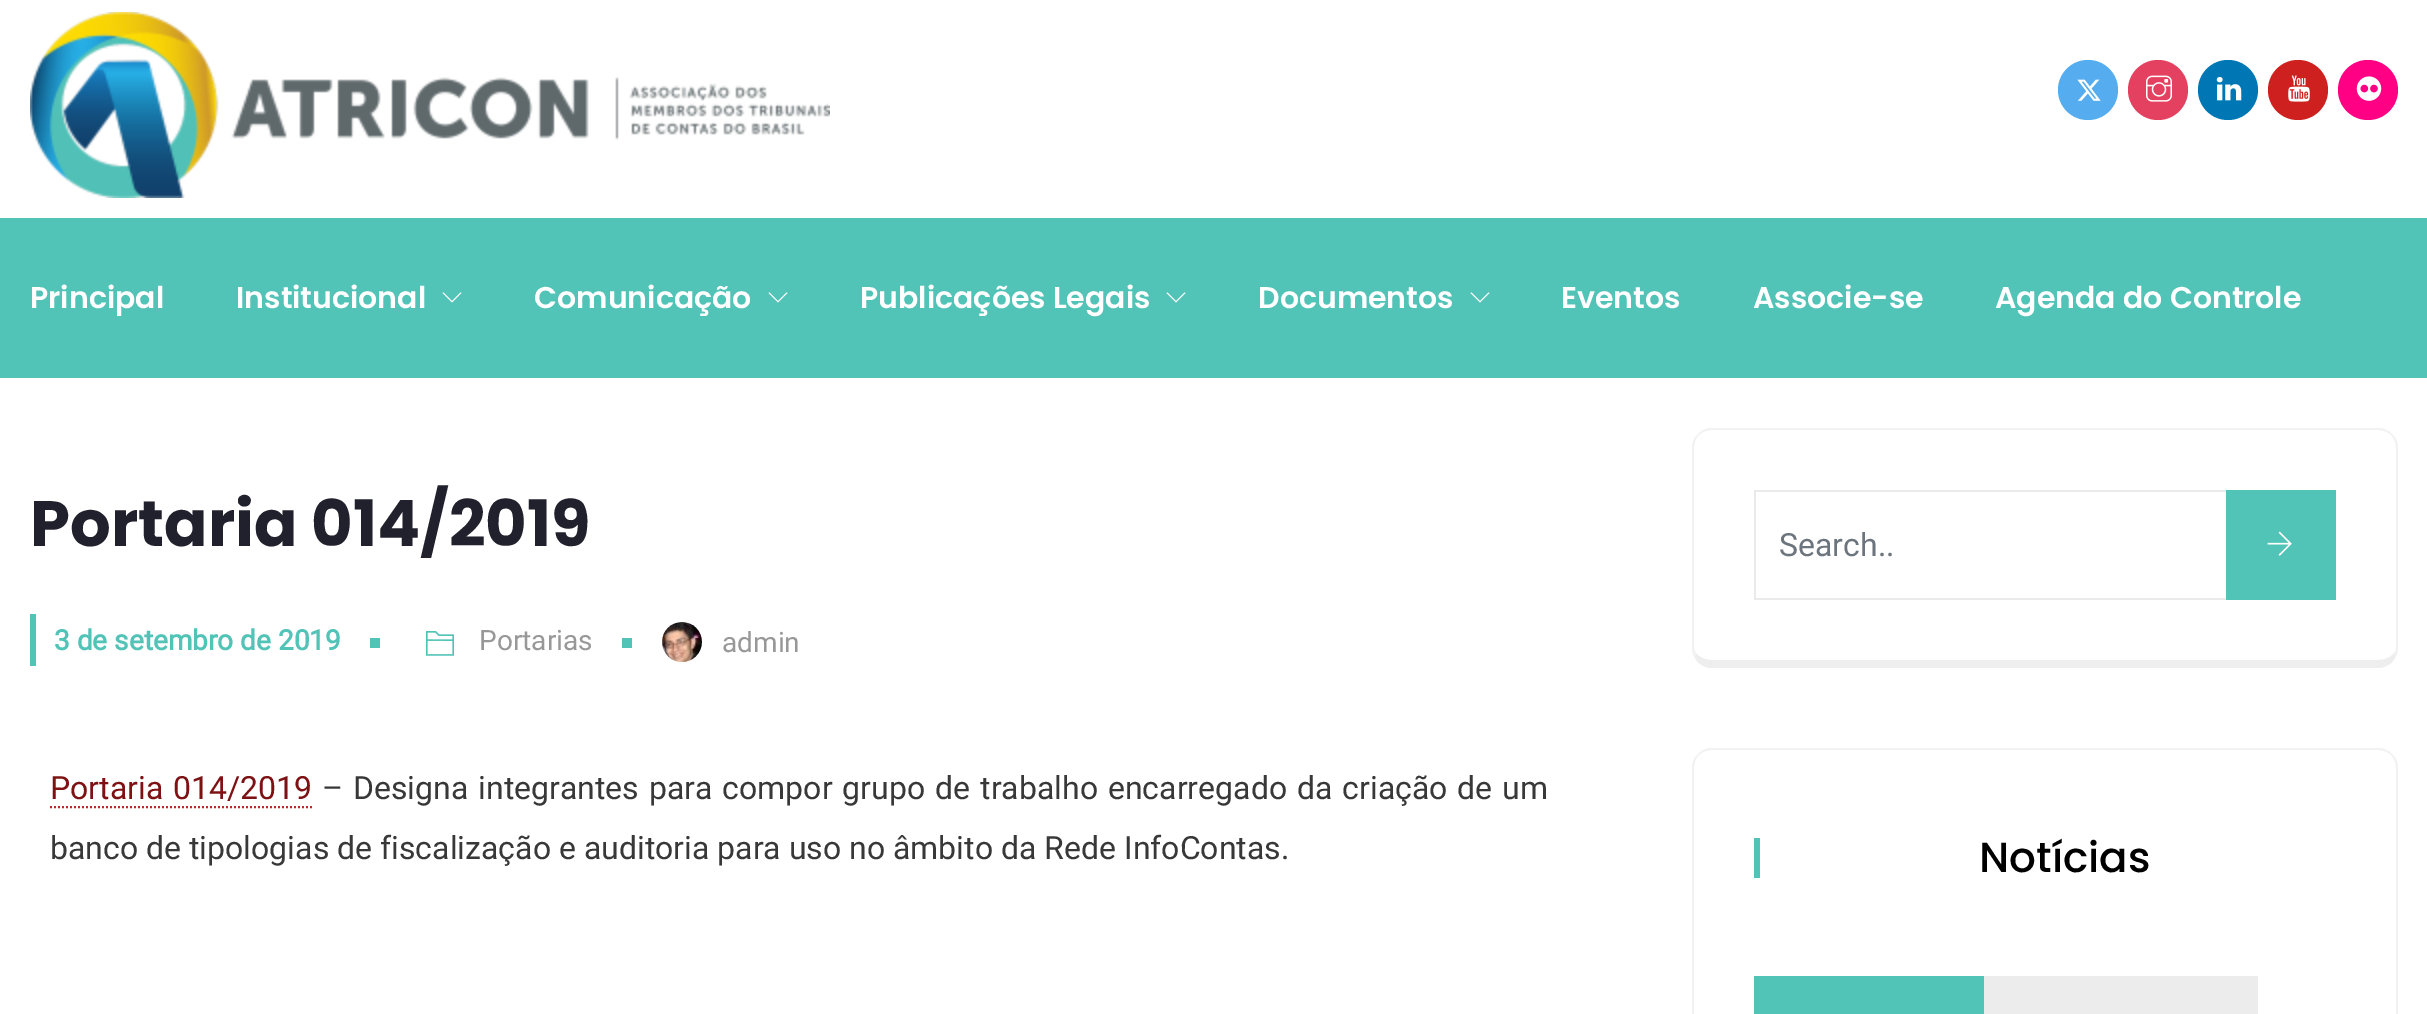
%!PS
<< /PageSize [2427 1014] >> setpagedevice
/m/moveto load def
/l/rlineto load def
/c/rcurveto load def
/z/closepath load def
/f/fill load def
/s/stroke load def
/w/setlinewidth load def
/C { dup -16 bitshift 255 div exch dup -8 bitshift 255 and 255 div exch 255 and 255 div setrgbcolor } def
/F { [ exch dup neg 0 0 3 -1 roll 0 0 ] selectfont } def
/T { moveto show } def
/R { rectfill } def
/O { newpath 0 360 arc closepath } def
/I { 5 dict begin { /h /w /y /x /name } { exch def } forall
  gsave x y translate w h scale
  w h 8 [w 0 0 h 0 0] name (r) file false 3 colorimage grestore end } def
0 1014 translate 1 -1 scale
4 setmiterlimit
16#FFFFFF C
0 0 2427 1014 R
(1.rgb) 30 12 800 186 I
16#55ACEE C
2088 90 30 O f
(2.rgb) 2077 79 24 22 I
16#E4405F C
2158 90 30 O f
(3.rgb) 2146 75 26 27 I
16#0077B5 C
2228 90 30 O f
(4.rgb) 2216 77 26 24 I
16#CD201F C
2298 90 30 O f
(5.rgb) 2288 75 22 27 I
16#FF0084 C
2368 90 30 O f
(6.rgb) 2356 76 26 25 I
16#52C3B7 C
0 218 2427 160 R
/Poppins-SemiBold 30 F
16#FFFFFF C
(Principal) 30 308 T
(Institucional) 236 308 T
461.5 293 m -9.5 9.5 l -9.5 -9.5 l 1 -.5 l 8.5 8.5 l 8.5 -8.5 l z f
(Comunicação) 534 308 T
787.5 293 m -9.5 9.5 l -9.5 -9.5 l 1 -.5 l 8.5 8.5 l 8.5 -8.5 l z f
(Publicações Legais) 860 308 T
1185.5 293 m -9.5 9.5 l -9.5 -9.5 l 1 -.5 l 8.5 8.5 l 8.5 -8.5 l z f
(Documentos) 1258 308 T
1489.5 293 m -9.5 9.5 l -9.5 -9.5 l 1 -.5 l 8.5 8.5 l 8.5 -8.5 l z f
(Eventos) 1561 308 T
(Associe-se) 1753 308 T
(Agenda do Controle) 1995 308 T
/Poppins-Bold 64 F
16#21212D C
(Portaria 014/2019) 30 546 T
16#52C3B7 C
30 614 6 52 R
/Roboto-Bold 28 F
(3 de setembro de 2019) 54 650 T
370 638 10 10 R
(7.rgb) 426 631 28 25 I
/Roboto-Regular 28 F
16#989898 C
(Portarias) 479 650 T
16#52C3B7 C
622 638 10 10 R
(8.rgb) 662 622 40 40 I
16#989898 C
(admin) 722 652 T
/Roboto-Regular 32 F
16#7D1113 C
50 799 m 2 0 32 (Portaria 014/2019) widthshow
16#C1282A C
2 w
[2 2] 0 setdash
50 807 m 262 0 l s
16#383838 C
322 799 m 2 0 32 (– Designa integrantes para compor grupo de trabalho encarregado da criação de um) widthshow
(banco de tipologias de fiscalização e auditoria para uso no âmbito da Rede InfoContas.) 50 859 T
16#F2F2F2 C
1712 428 m -6 0 -10 2 -14 6 c 1 1 l 3 -3 8 -5 13 -5 c 666 0 l 5 0 10 2 13 5 c 1 -1 l -4 -4 -8 -6 -14 -6 c z f
2398 648 m 0 -200 l 0 -6 -2 -10 -6 -14 c -1 1 l 3 3 5 8 5 13 c 0 200 l 0 2 -1 4 -2 5 c 1 5 l 2 -3 3 -6 3 -10 c z f
16#EEEEEE C
1712 668 m 666 0 l 7 0 14 -4 17 -10 c -1 -5 l -3 4 -9 7 -16 7 c -666 0 l -7 0 -13 -3 -16 -7 c -1 5 l 3 6 10 10 17 10 c z f
16#F2F2F2 C
1692 448 m 0 200 l 0 4 1 7 3 10 c 1 -5 l -1 -1 -2 -3 -2 -5 c 0 -200 l 0 -5 2 -10 5 -13 c -1 -1 l -4 4 -6 8 -6 14 c z f
16#EAEAEA C
1754 490 474 2 R
1754 598 474 2 R
1754 490 2 110 R
16#6C757D C
(Search..) 1779 556 T
16#52C3B7 C
2226 490 110 110 R
(9.rgb) 2267 531 25 25 I
16#F2F2F2 C
1712 748 m -6 0 -10 2 -14 6 c 1 1 l 3 -3 8 -5 13 -5 c 666 0 l 5 0 10 2 13 5 c 1 -1 l -4 -4 -8 -6 -14 -6 c z f
2398 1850 m 0 -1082 l 0 -6 -2 -10 -6 -14 c -1 1 l 3 3 5 8 5 13 c 0 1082 l 0 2 -1 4 -2 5 c 1 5 l 2 -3 3 -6 3 -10 c z f
1692 768 m 0 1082 l 0 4 1 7 3 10 c 1 -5 l -1 -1 -2 -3 -2 -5 c 0 -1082 l 0 -5 2 -10 5 -13 c -1 -1 l -4 4 -6 8 -6 14 c z f
16#52C3B7 C
1754 838 6 40 R
/Poppins-Medium 42 F
16#000000 C
(Notícias) 1979 872 T
16#52C3B7 C
1754 976 230 38 R
16#ECECEC C
1984 976 274 38 R
showpage
